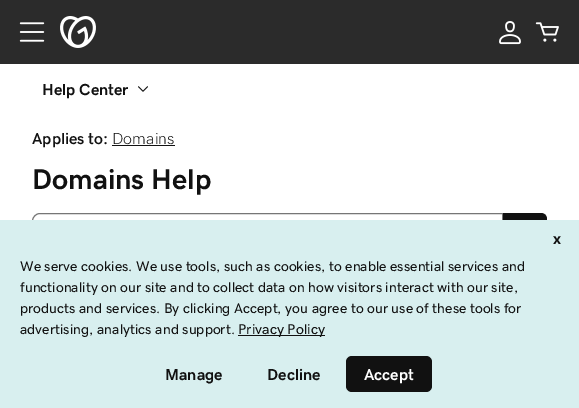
%!PS
<< /PageSize [579 408] >> setpagedevice
/m/moveto load def
/l/rlineto load def
/c/rcurveto load def
/z/closepath load def
/f/fill load def
/s/stroke load def
/C { dup -16 bitshift 255 div exch dup -8 bitshift 255 and 255 div exch 255 and 255 div setrgbcolor } def
/F { [ exch dup neg 0 0 3 -1 roll 0 0 ] selectfont } def
/T { moveto show } def
/R { rectfill } def
/Q { 5 dict begin { /r /h /w /y /x } { exch def } forall
  x r add y moveto x w add y 2 copy h add r arct x w add y h add x 1 index r arct
  x y h add x y r arct x y 2 copy exch w add exch r arct closepath end } def
/I { 5 dict begin { /h /w /y /x /name } { exch def } forall
  gsave x y translate w h scale
  w h 8 [w 0 0 h 0 0] name (r) file false 3 colorimage grestore end } def
0 408 translate 1 -1 scale
4 setmiterlimit
16#FFFFFF C
0 0 579 408 R
16#2B2B2B C
0 0 579 64 R
(1.rgb) 19 22 26 20 I
(2.rgb) 60 16 36 32 I
(3.rgb) 499 21 22 24 I
(4.rgb) 535 22 24 20 I
/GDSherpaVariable-Bold 16 F
16#111111 C
(Help Center) 42 95 T
(5.rgb) 138 86 10 6 I
/GDSherpaVariable-SemiBold 16 F
(Applies to:) 32 144 T
/GDSherpaVariable-ExtraLight 16 F
(Domains) 112 144 T
112 145 63 1 R
/GDSherpaVariable-Bold 28.75 F
(Domains Help) 32 189 T
16#767676 C
40 213.5 m 462.5 0 l 0 35 l -462.5 0 l -4 0 -7.5 -3.5 -7.5 -7.5 c 0 -20 l 0 -4 3.5 -7.5 7.5 -7.5 c z s
16#111111 C
503 213 m 38 0 l 3.5 0 6 2.5 6 6 c 0 24 l 0 3.5 -2.5 6 -6 6 c -38 0 l z f
16#D8EFEF C
0 220 579 188 R
/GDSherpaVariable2-Bold 16 F
16#111111 C
(x) 553 244 T
/GDSherpaVariable-Regular 14 F
(We serve cookies. We use tools, such as cookies, to enable essential services and) 20 271 T
(functionality on our site and to collect data on how visitors interact with our site,) 20 292 T
(products and services. By clicking Accept, you agree to our use of these tools for) 20 313 T
(advertising, analytics and support.) 20 334 T
238 335 87 1 R
/GDSherpaVariable-Regular 14.25 F
(Privacy Policy) 238 334 T
/GDSherpaVariable2-Bold 16 F
(Manage) 165 380 T
(Decline) 267 380 T
346 356 86 36 6 Q f
16#FFFFFF C
(Accept) 364 380 T
showpage
